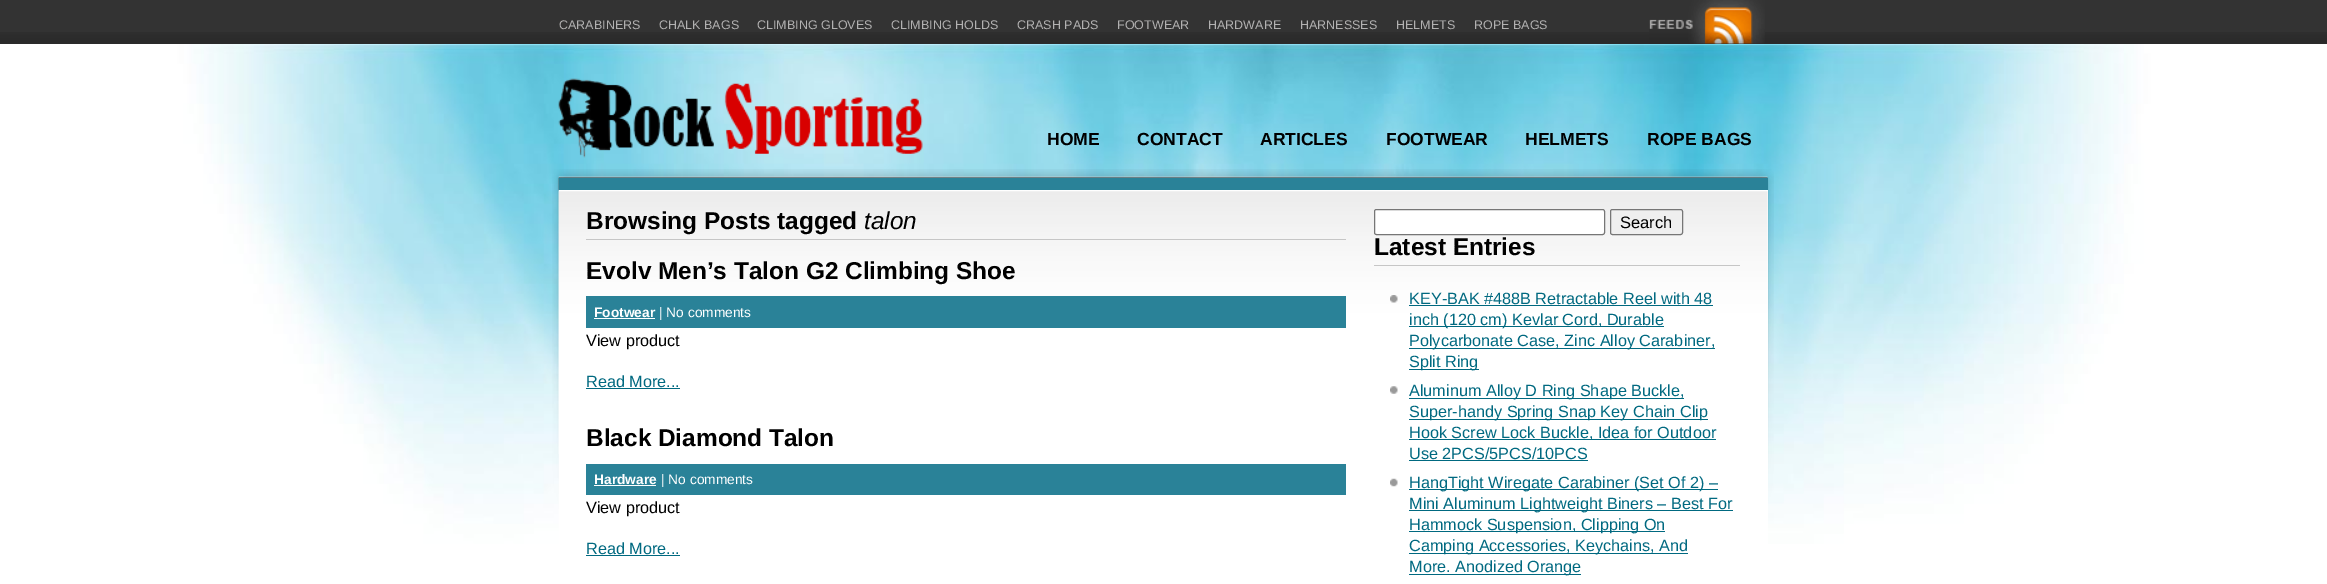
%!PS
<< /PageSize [2327 584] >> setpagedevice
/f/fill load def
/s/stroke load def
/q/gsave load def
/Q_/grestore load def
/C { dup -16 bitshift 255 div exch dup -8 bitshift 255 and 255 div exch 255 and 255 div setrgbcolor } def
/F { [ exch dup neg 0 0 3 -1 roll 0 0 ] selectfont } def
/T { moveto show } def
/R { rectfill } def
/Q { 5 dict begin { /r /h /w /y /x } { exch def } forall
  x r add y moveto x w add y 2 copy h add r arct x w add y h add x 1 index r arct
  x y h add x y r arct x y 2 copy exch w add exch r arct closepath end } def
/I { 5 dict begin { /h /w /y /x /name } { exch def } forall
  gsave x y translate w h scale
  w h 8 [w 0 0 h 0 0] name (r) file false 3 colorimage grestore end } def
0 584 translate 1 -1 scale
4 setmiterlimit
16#FFFFFF C
0 0 2327 584 R
16#333333 C
0 0 2327 44 R
(1.rgb) 0 32 2327 12 I
/LiberationSans-Regular 12.5 F
16#B2B1B1 C
(CARABINERS) 559 29 T
(CHALK BAGS) 659 29 T
(CLIMBING GLOVES) 757 29 T
(CLIMBING HOLDS) 891 29 T
(CRASH PADS) 1017 29 T
(FOOTWEAR) 1117 29 T
(HARDWARE) 1208 29 T
(HARNESSES) 1300 29 T
(HELMETS) 1396 29 T
(ROPE BAGS) 1474 29 T
(2.rgb) 1649 0 116 44 I
(3.rgb) 163 44 2001 510 I
(4.rgb) 558 78 365 80 I
/LiberationSans-Bold 17.5 F
16#000000 C
(HOME) 1047 145 T
(CONTACT) 1137 145 T
(ARTICLES) 1260 145 T
(FOOTWEAR) 1386 145 T
(HELMETS) 1525 145 T
(ROPE BAGS) 1647 145 T
(5.rgb) 552 169 1222 365 I
16#FFFFFF C
559 190 1209 364 R
(6.rgb) 558 191 1210 263 I
16#2A8298 C
559 178 1209 12 R
16#C6C6C6 C
586 239 760 1 R
/LiberationSans-Bold 24.4 F
16#000000 C
(Browsing Posts tagged) 586 229 T
/LiberationSans-Italic 24.4 F
(talon) 864 229 T
/LiberationSans-Bold 24.4 F
(Evolv Men’s Talon G2 Climbing Shoe) 586 279 T
16#2A8298 C
586 296 760 32 R
/LiberationSans-Bold 13.75 F
16#FFFFFF C
(Footwear) 594 317 T
594 318 61 1 R
/LiberationSans-Regular 13.75 F
(| No comments) 659 317 T
/LiberationSans-Regular 16.25 F
16#000000 C
(View product) 586 346 T
16#006980 C
(Read More...) 586 387 T
586 388 94 1 R
/LiberationSans-Bold 24.4 F
16#000000 C
(Black Diamond Talon) 586 446 T
16#2A8298 C
586 464 760 31 R
/LiberationSans-Bold 13.75 F
16#FFFFFF C
(Hardware) 594 484 T
594 485 62 1 R
/LiberationSans-Regular 13.75 F
(| No comments) 661 484 T
/LiberationSans-Regular 16.25 F
16#000000 C
(View product) 586 513 T
16#006980 C
(Read More...) 586 554 T
586 555 94 1 R
16#FFFFFF C
1374.5 209.5 230 25 2 Q q f Q_
16#767676 C
s
16#EFEFEF C
1610.5 209.5 72 25 2 Q q f Q_
16#767676 C
s
/LiberationSans-Regular 16.5 F
16#000000 C
(Search) 1620 228 T
16#C6C6C6 C
1374 265 366 1 R
/LiberationSans-Bold 24.4 F
16#000000 C
(Latest Entries) 1374 255 T
(7.rgb) 1390 295 8 8 I
/LiberationSans-Regular 16.25 F
16#006980 C
(KEY-BAK #488B Retractable Reel with 48) 1409 304 T
1409 305 304 1 R
1409 326 255 1 R
(inch \(120 cm\) Kevlar Cord, Durable) 1409 325 T
1409 348 306 1 R
(Polycarbonate Case, Zinc Alloy Carabiner,) 1409 346 T
1409 369 70 1 R
(Split Ring) 1409 367 T
(8.rgb) 1390 386 8 8 I
1409 398 275 1 R
(Aluminum Alloy D Ring Shape Buckle,) 1409 396 T
1409 419 299 1 R
(Super-handy Spring Snap Key Chain Clip) 1409 417 T
1409 439 307 1 R
(Hook Screw Lock Buckle, Idea for Outdoor) 1409 438 T
(Use 2PCS/5PCS/10PCS) 1409 459 T
1409 460 179 1 R
(9.rgb) 1390 478 8 9 I
1409 489 309 1 R
(HangTight Wiregate Carabiner \(Set Of 2\) –) 1409 488 T
1409 510 324 1 R
(Mini Aluminum Lightweight Biners – Best For) 1409 509 T
1409 531 256 1 R
(Hammock Suspension, Clipping On) 1409 530 T
1409 553 279 1 R
(Camping Accessories, Keychains, And) 1409 551 T
1409 574 172 1 R
(More. Anodized Orange) 1409 572 T
showpage
